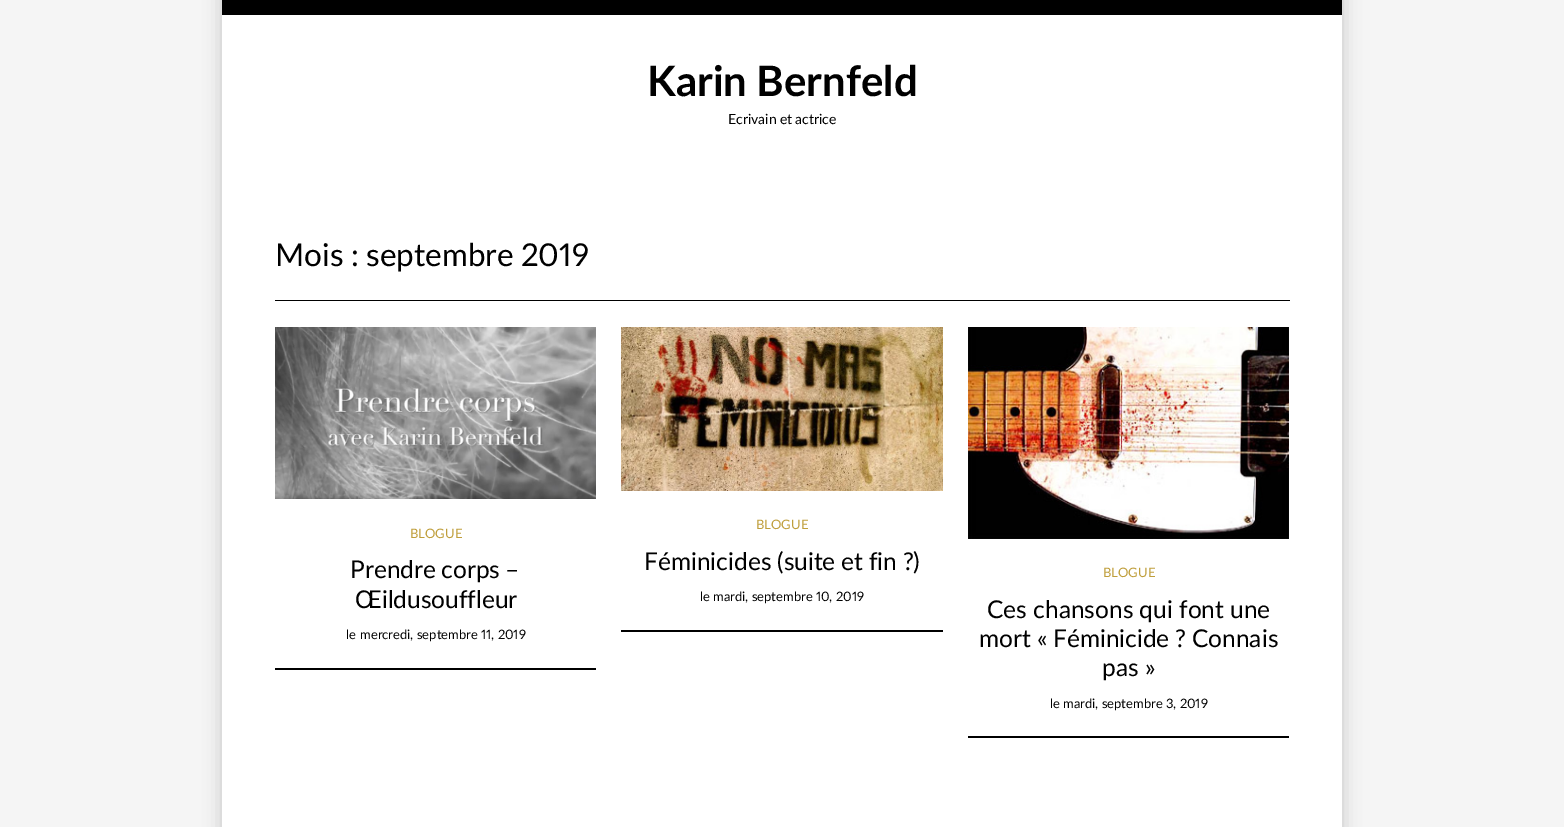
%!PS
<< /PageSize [1564 827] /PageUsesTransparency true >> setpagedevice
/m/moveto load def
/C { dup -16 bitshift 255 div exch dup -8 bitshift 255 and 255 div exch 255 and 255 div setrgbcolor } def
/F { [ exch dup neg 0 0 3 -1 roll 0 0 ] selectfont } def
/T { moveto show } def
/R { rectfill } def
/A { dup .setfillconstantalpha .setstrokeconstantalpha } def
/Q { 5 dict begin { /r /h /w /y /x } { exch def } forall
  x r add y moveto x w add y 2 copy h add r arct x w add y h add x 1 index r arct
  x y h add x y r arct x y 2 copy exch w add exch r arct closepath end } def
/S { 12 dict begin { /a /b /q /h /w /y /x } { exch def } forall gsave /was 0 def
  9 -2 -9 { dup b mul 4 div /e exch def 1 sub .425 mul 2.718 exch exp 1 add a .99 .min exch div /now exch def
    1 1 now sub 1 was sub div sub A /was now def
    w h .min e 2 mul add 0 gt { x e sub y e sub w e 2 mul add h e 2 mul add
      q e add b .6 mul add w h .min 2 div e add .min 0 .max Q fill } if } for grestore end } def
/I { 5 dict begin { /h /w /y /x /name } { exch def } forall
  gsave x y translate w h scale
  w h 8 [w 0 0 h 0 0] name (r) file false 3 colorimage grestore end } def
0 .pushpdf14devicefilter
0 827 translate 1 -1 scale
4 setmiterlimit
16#F5F5F5 C
0 0 1564 827 R
16#000000 C
222 -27 1120 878 0 9 .2 S
16#FFFFFF C
222 15 1120 812 R
16#000000 C
222 0 1120 15 R
/Lato-Bold 42 F
647 96 m -1 0 32 (Karin Bernfeld) widthshow
/Lato-Regular 14 F
728 124 m -.5 0 32 (Ecrivain et actrice) widthshow
275 300 1015 1 R
/Lato-Regular 31.5 F
(Mois :) 275 266 T
/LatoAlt-Regular 31.5 F
366 266 m -1 0 32 (septembre 2019) widthshow
(1.rgb) 275 327 321 172 I
/Lato-Regular 13 F
16#BF9E3B C
(BLOGUE) 410 538 T
/Lato-Regular 24.5 F
16#000000 C
350 578 m -1 0 32 (Prendre corps –) widthshow
(Œildusouffleur) 355 608 T
/Lato-Regular 13 F
(le) 346 639 T
/LatoAlt-Regular 13 F
(mercredi, septembre 11, 2019) 360 639 T
275 668 321 2 R
(2.rgb) 621 327 322 164 I
/Lato-Regular 13 F
16#BF9E3B C
(BLOGUE) 756 529 T
/Lato-Regular 24.5 F
16#000000 C
644 570 m -.5 0 32 (Féminicides \(suite et fin ?\)) widthshow
/Lato-Regular 13 F
(le) 700 601 T
/LatoAlt-Regular 13 F
(mardi, septembre 10, 2019) 713 601 T
621 630 322 2 R
(3.rgb) 968 327 321 212 I
/Lato-Regular 13 F
16#BF9E3B C
(BLOGUE) 1103 577 T
/Lato-Regular 24.5 F
16#000000 C
(Ces chansons qui font une) 987 618 T
979 647 m -.5 0 32 (mort « Féminicide ? Connais) widthshow
(pas ») 1102 676 T
/Lato-Regular 13 F
(le) 1050 708 T
/LatoAlt-Regular 13 F
(mardi, septembre 3, 2019) 1063 708 T
968 736 321 2 R
.poppdf14devicefilter showpage
